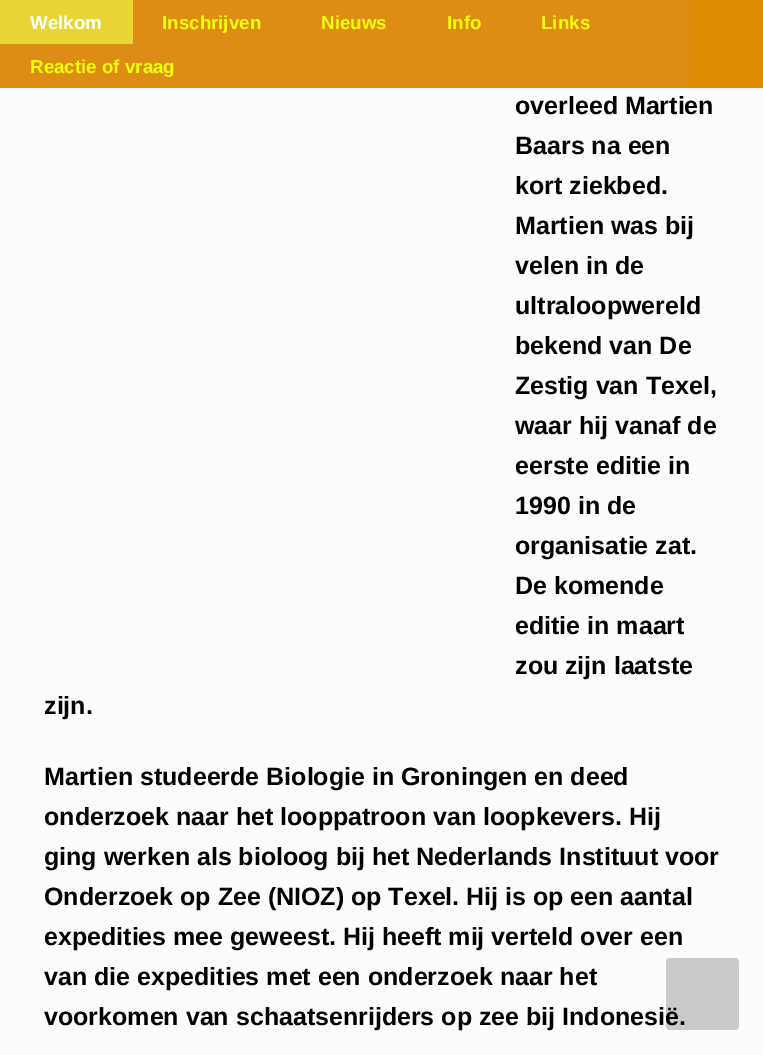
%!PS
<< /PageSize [763 1055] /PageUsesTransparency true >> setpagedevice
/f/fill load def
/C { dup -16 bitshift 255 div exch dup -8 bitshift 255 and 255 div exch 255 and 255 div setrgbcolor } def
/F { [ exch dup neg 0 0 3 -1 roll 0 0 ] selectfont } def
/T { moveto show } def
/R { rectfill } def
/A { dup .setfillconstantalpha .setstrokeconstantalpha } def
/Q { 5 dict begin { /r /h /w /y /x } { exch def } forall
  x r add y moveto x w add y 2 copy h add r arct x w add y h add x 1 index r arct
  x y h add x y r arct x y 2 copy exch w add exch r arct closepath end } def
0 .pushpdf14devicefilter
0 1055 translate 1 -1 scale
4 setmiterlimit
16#FCFCFC C
0 0 763 1055 R
16#DD8D13 C
0 0 690 88 R
16#E8D635 C
0 0 133 44 R
/LiberationSans-Bold 18.75 F
16#FFFFFF C
(Welkom) 30 29 T
16#EEFF0A C
(Inschrijven) 162 29 T
(Nieuws) 321 29 T
(Info) 447 29 T
(Links) 541 29 T
(Reactie of vraag) 30 73 T
16#DD8D02 C
690 0 73 88 R
/LiberationSans-Bold 25 F
16#000000 C
(overleed Martien) 515 114 T
(Baars na een) 515 154 T
(kort ziekbed.) 515 194 T
(Martien was bij) 515 234 T
(velen in de) 515 274 T
(ultraloopwereld) 515 314 T
(bekend van De) 515 354 T
(Zestig van Texel,) 515 394 T
(waar hij vanaf de) 515 434 T
(eerste editie in) 515 474 T
(1990 in de) 515 514 T
(organisatie zat.) 515 554 T
(De komende) 515 594 T
(editie in maart) 515 634 T
(zou zijn laatste) 515 674 T
(zijn.) 44 714 T
(Martien studeerde Biologie in Groningen en deed) 44 785 T
(onderzoek naar het looppatroon van loopkevers. Hij) 44 825 T
(ging werken als bioloog bij het Nederlands Instituut voor) 44 865 T
(Onderzoek op Zee \(NIOZ\) op Texel. Hij is op een aantal) 44 905 T
(expedities mee geweest. Hij heeft mij verteld over een) 44 945 T
(van die expedities met een onderzoek naar het) 44 985 T
(voorkomen van schaatsenrijders op zee bij Indonesië.) 44 1025 T
0.2 A
666 958 73 72 4 Q f
.poppdf14devicefilter showpage
